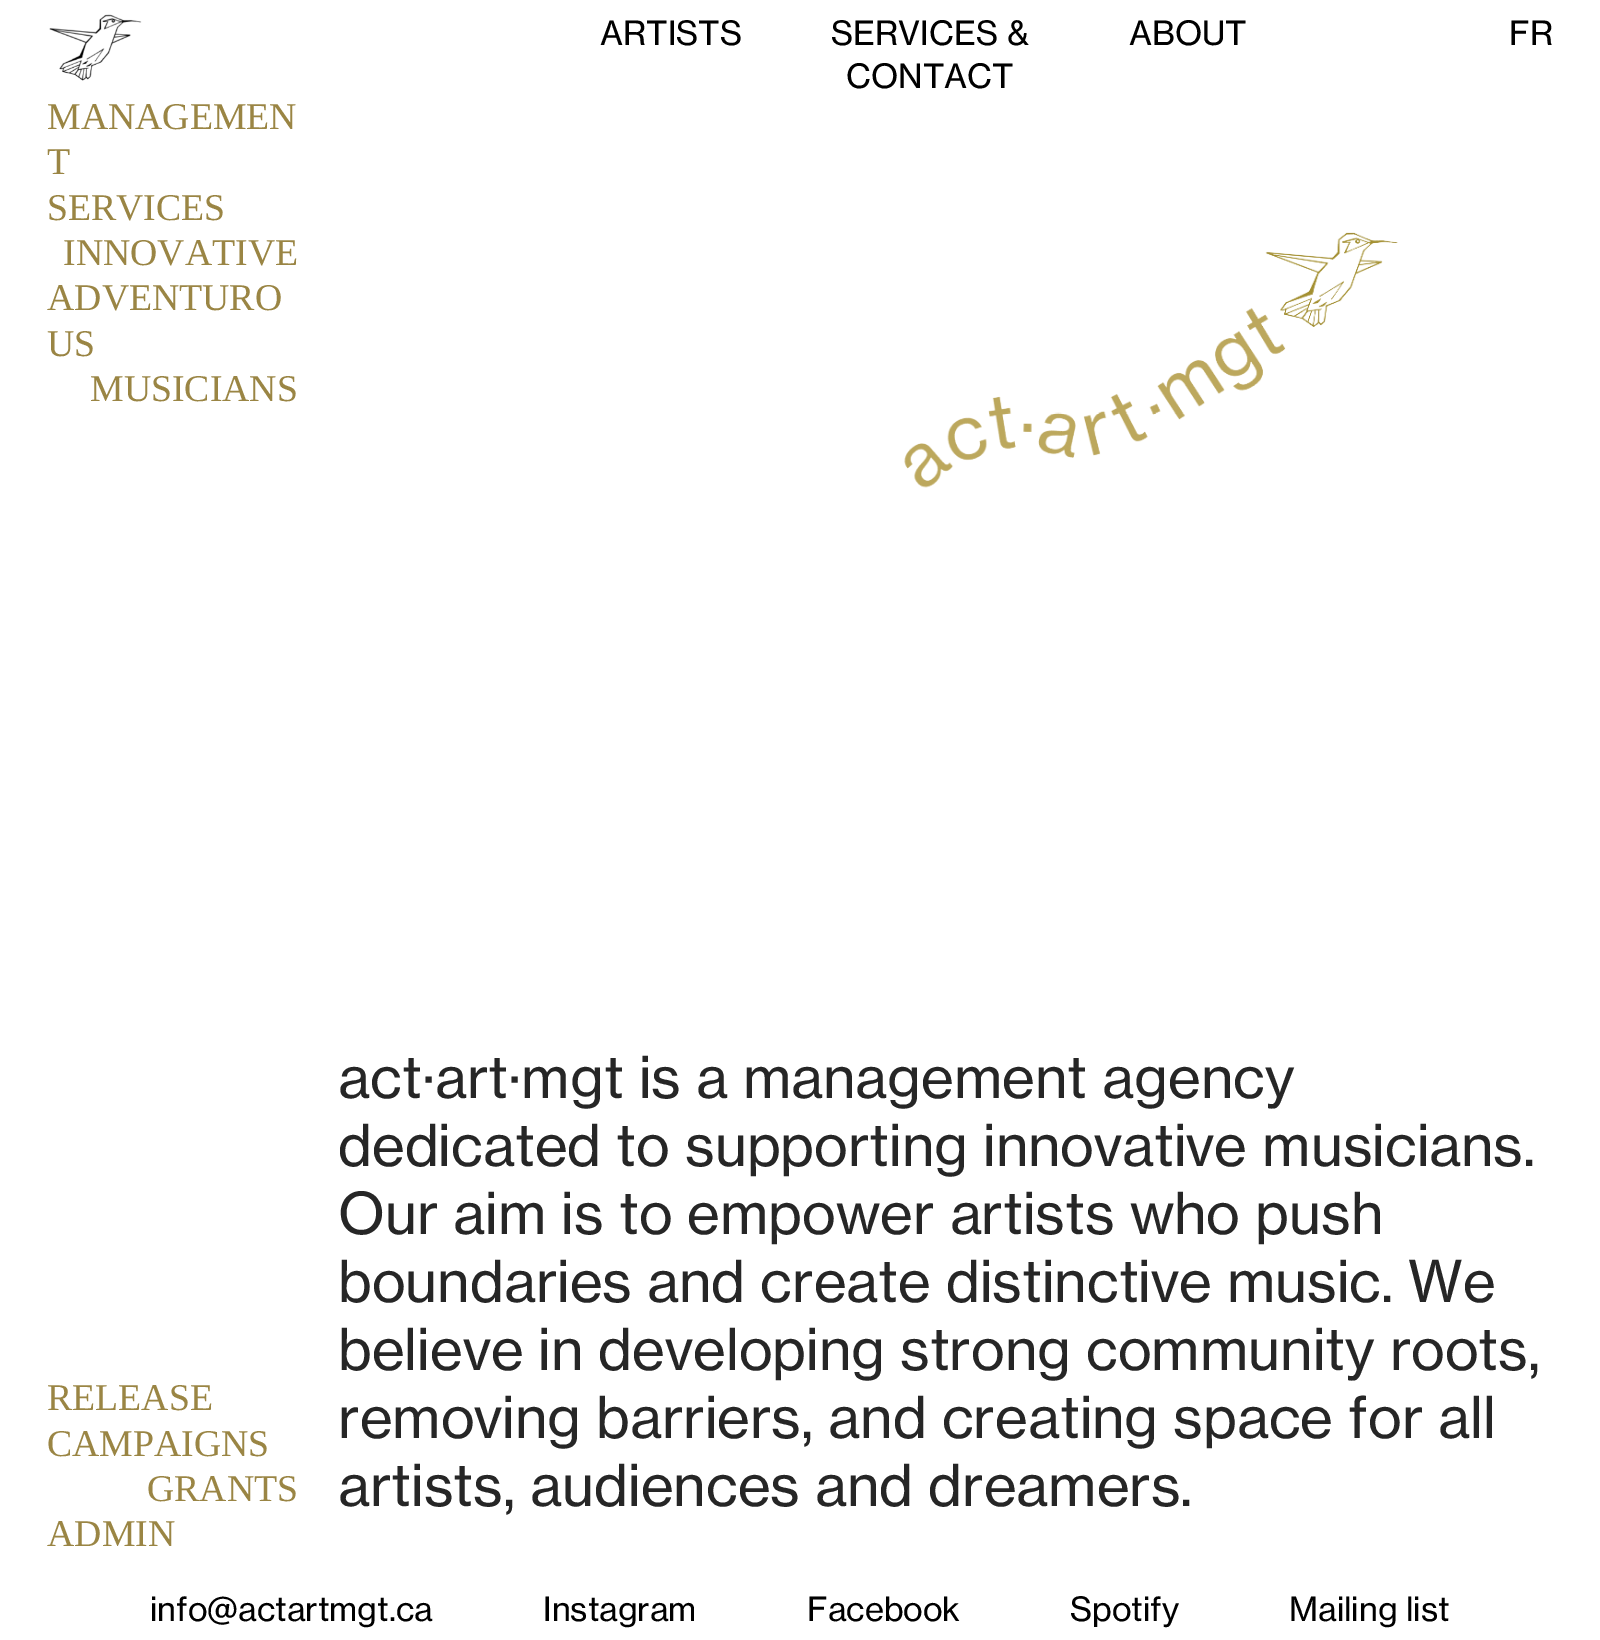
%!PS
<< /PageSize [1600 1640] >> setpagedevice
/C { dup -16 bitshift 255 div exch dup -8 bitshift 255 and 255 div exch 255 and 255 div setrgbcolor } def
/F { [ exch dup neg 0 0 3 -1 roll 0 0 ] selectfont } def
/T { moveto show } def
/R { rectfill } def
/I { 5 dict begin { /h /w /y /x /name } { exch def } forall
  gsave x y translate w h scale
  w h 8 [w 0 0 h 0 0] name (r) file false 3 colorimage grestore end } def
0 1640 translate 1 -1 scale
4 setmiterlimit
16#FFFFFF C
0 0 1600 1640 R
(1.rgb) 49 14 93 67 I
/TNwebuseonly-Regular 33 F
16#000000 C
(ARTISTS) 600 45 T
(SERVICES &) 831 45 T
(CONTACT) 846 88 T
(ABOUT) 1129 45 T
(FR) 1509 45 T
/LiberationSerif-Regular 37.75 F
16#9A8544 C
(MANAGEMEN) 47 129 T
(T) 47 174 T
(SERVICES) 47 220 T
(INNOVATIVE) 63 265 T
(ADVENTURO) 47 310 T
(US) 47 356 T
(MUSICIANS) 90 401 T
(RELEASE) 47 1410 T
(CAMPAIGNS) 47 1456 T
(GRANTS) 147 1501 T
(ADMIN) 47 1546 T
(2.rgb) 904 232 494 256 I
/TNwebuseonly-Regular 56.75 F
16#262626 C
(act·art·mgt is a management agency) 338 1098 T
(dedicated to supporting innovative musicians.) 338 1166 T
(Our aim is to empower artists who push) 338 1234 T
(boundaries and create distinctive music. We) 338 1302 T
(believe in developing strong community roots,) 338 1370 T
(removing barriers, and creating space for all) 338 1438 T
(artists, audiences and dreamers.) 338 1506 T
/TNwebuseonly-Regular 33 F
16#000000 C
(info@actartmgt.ca) 150 1621 T
(Instagram) 543 1621 T
(Facebook) 807 1621 T
(Spotify) 1070 1621 T
(Mailing list) 1289 1621 T
showpage
